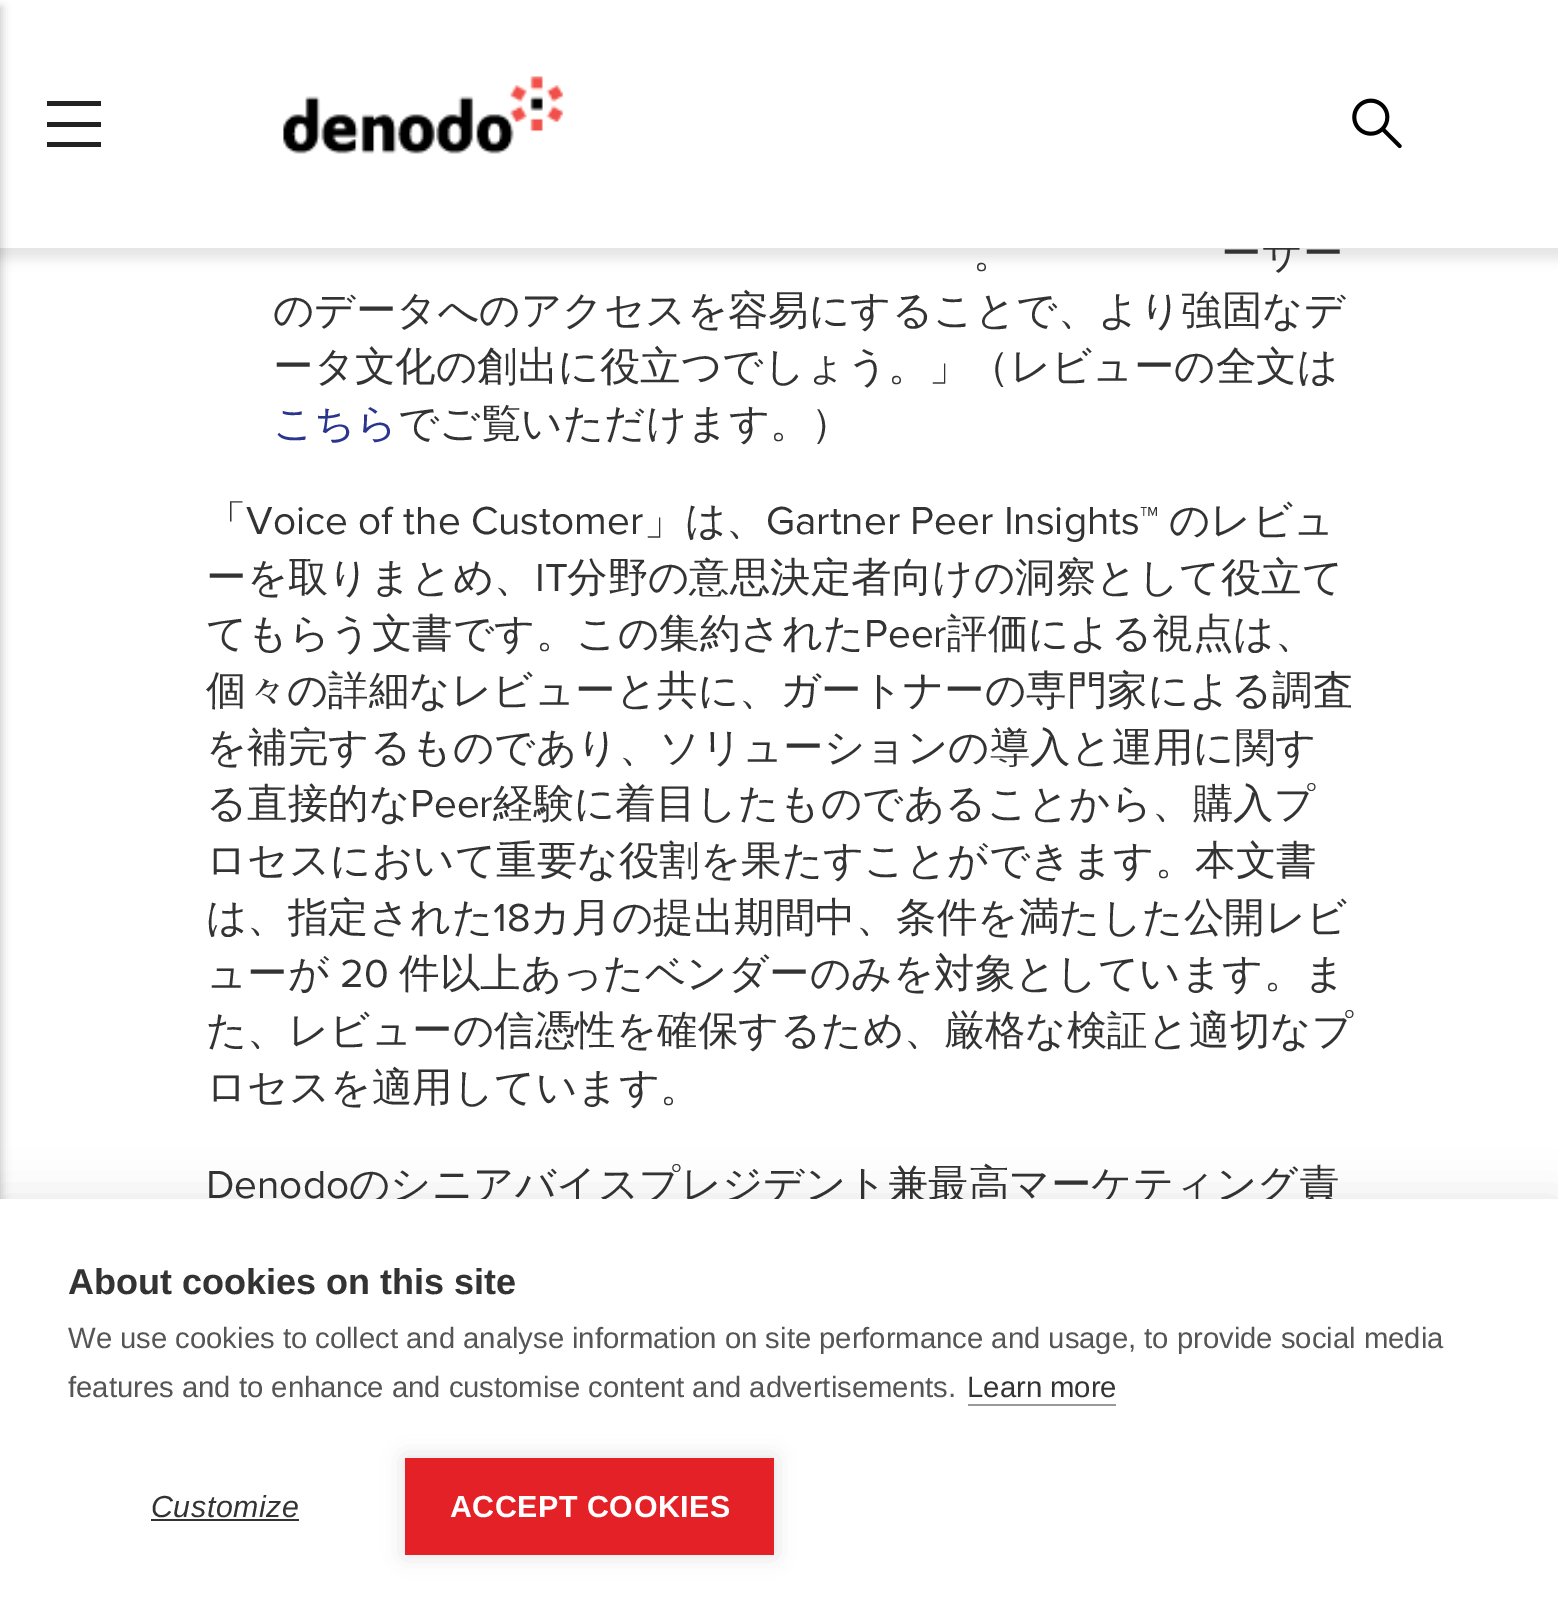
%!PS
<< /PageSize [1558 1610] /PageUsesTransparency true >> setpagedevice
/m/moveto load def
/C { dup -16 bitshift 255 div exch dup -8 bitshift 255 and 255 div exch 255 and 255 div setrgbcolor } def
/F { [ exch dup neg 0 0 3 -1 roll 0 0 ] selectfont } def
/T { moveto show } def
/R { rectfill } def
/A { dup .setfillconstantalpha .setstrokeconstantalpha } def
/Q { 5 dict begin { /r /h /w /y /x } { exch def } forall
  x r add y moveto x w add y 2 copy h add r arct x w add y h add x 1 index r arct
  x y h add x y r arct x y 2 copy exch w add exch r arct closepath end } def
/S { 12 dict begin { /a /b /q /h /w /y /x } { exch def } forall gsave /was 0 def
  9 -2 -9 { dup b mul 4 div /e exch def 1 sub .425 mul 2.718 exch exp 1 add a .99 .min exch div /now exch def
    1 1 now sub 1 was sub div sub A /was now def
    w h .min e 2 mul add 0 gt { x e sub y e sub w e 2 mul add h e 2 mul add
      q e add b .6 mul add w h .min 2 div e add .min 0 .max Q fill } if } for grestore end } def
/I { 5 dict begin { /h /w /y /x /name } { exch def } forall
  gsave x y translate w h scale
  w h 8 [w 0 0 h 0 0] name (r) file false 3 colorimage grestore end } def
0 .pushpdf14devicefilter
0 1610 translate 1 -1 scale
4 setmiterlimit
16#FFFFFF C
0 0 1558 1610 R
16#000000 C
-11 -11 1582 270 0 5.5 .1 S
/WenQuanYiZenHei-Medium 40.5 F
16#333333 C
(ーザー) 1221 267 T
16#FFFFFF C
0 0 1558 248 R
16#000000 C
-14 7 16 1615 0 4.5 .2 S
16#222222 C
47 101 54 5 R
47 122 54 5 R
47 142 54 5 R
(1.rgb) 283 76 281 78 I
(2.rgb) 1352 98 50 51 I
16#333333 C
(。) 973 267 T
(のデータへのアクセスを容易にすることで、より強固なデ) 273 324 T
(ータ文化の創出に役立つでしょう。」（レビューの全文は) 273 380 T
16#2A368D C
(こちら) 273 437 T
16#333333 C
(でご覧いただけます。）) 398 437 T
(「) 206 534 T
/ProximaNova-Regular 40.5 F
(Voice of the Customer) 246 534 T
/WenQuanYiZenHei-Medium 40.5 F
(」は、) 644 534 T
/ProximaNova-Regular 40.5 F
(Gartner Peer Insights™) 766 534 T
/WenQuanYiZenHei-Medium 40.5 F
(のレビュ) 1169 534 T
(ーを取りまとめ、) 206 591 T
/ProximaNova-Regular 40.5 F
(IT) 535 591 T
/WenQuanYiZenHei-Medium 40.5 F
(分野の意思決定者向けの洞察として役立て) 567 591 T
(てもらう文書です。この集約された) 206 647 T
/ProximaNova-Regular 40.5 F
(Peer) 864 647 T
/WenQuanYiZenHei-Medium 40.5 F
(評価による視点は、) 947 647 T
(個々の詳細なレビューと共に、ガートナーの専門家による調査) 206 704 T
(を補完するものであり、ソリューションの導入と運用に関す) 206 761 T
(る直接的な) 206 817 T
/ProximaNova-Regular 40.5 F
(Peer) 410 817 T
/WenQuanYiZenHei-Medium 40.5 F
(経験に着目したものであることから、購入プ) 493 817 T
(ロセスにおいて重要な役割を果たすことができます。本文書) 206 874 T
(は、指定された) 206 931 T
/ProximaNova-Regular 40.5 F
(18) 493 931 T
/WenQuanYiZenHei-Medium 40.5 F
(カ月の提出期間中、条件を満たした公開レビ) 530 931 T
(ューが) 206 987 T
/ProximaNova-Regular 40.5 F
(20) 340 987 T
/WenQuanYiZenHei-Medium 40.5 F
(件以上あったベンダーのみを対象としています。ま) 399 987 T
(た、レビューの信憑性を確保するため、厳格な検証と適切なプ) 206 1044 T
(ロセスを適用しています。) 206 1101 T
/ProximaNova-Regular 40.5 F
(Denodo) 206 1198 T
/WenQuanYiZenHei-Medium 40.5 F
(のシニアバイスプレジデント兼最高マーケティング責) 349 1198 T
16#000000 C
0 1199 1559 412 0 22.5 .1 S
16#FFFFFF C
0 1199 1558 411 R
/LiberationSans-Bold 36 F
16#333333 C
(About cookies on this site) 68 1294 T
/LiberationSans-Regular 29.25 F
16#555555 C
(We use cookies to collect and analyse information on site performance and usage, to provide social media) 68 1348 T
(features and to enhance and customise content and advertisements.) 68 1397 T
16#333333 C
(Learn more) 967 1397 T
16#999999 C
968 1404 148 2 R
/LiberationSans-Italic 30.4 F
16#333333 C
151 1517 m .5 0 (Customize) ashow
151 1519 148 2 R
16#000000 C
405 1458 369 97 0 11 .12 S
16#E42127 C
405 1458 369 97 R
/LiberationSans-Bold 30.4 F
16#FFFFFF C
450 1517 m .5 0 (ACCEPT COOKIES) ashow
.poppdf14devicefilter showpage
